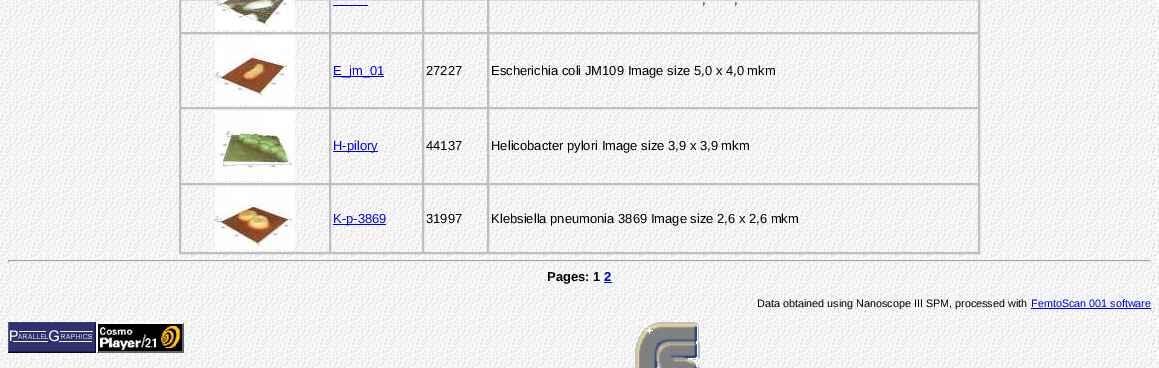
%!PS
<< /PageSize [1159 368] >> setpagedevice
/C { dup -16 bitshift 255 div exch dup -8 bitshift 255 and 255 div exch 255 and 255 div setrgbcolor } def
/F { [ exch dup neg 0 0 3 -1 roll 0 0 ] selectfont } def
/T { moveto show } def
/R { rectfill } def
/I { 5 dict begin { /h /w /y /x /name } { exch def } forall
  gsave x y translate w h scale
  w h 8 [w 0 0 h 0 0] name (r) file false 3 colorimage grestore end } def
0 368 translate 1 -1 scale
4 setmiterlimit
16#FFFFFF C
0 0 1159 368 R
(1.rgb) 0 0 1159 368 I
16#BFBFBF C
179.5 -.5 800 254 rectstroke
180.5 -.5 149 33 rectstroke
(2.rgb) 215 0 80 30 I
330.5 -.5 92 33 rectstroke
16#0000EE C
333 5 35 1 R
16#BFBFBF C
423.5 -.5 64 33 rectstroke
488.5 -.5 490 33 rectstroke
/LiberationSans-Regular 13 F
16#000000 C
(,) 702 4 T
(,) 734 4 T
16#BFBFBF C
180.5 33.5 149 74 rectstroke
(3.rgb) 215 36 80 69 I
330.5 33.5 92 74 rectstroke
16#0000EE C
333 76 51 1 R
(E_jm_01) 333 75 T
16#BFBFBF C
423.5 33.5 64 74 rectstroke
16#000000 C
(27227) 426 75 T
16#BFBFBF C
488.5 33.5 490 74 rectstroke
16#000000 C
(Escherichia coli JM109 Image size 5,0 x 4,0 mkm) 491 75 T
16#BFBFBF C
180.5 108.5 149 75 rectstroke
(4.rgb) 215 111 80 70 I
330.5 108.5 92 75 rectstroke
16#0000EE C
333 151 45 1 R
(H-pilory) 333 150 T
16#BFBFBF C
423.5 108.5 64 75 rectstroke
16#000000 C
(44137) 426 150 T
16#BFBFBF C
488.5 108.5 490 75 rectstroke
16#000000 C
(Helicobacter pylori Image size 3,9 x 3,9 mkm) 491 150 T
16#BFBFBF C
180.5 184.5 149 68 rectstroke
(5.rgb) 215 187 80 63 I
330.5 184.5 92 68 rectstroke
16#0000EE C
333 224 53 1 R
(K-p-3869) 333 223 T
16#BFBFBF C
423.5 184.5 64 68 rectstroke
16#000000 C
(31997) 426 223 T
16#BFBFBF C
488.5 184.5 490 68 rectstroke
16#000000 C
(Klebsiella pneumonia 3869 Image size 2,6 x 2,6 mkm) 491 223 T
16#9F9F9F C
8 260 1143 1 R
16#EEEEEE C
1150 260 1 2 R
8 261 1143 1 R
16#9F9F9F C
8 260 1 2 R
/LiberationSans-Bold 13 F
16#000000 C
(Pages: 1) 547 281 T
16#0000EE C
604 282 8 1 R
(2) 604 281 T
/LiberationSans-Regular 10.8 F
16#000000 C
(Data obtained using Nanoscope III SPM, processed with) 757 307 T
16#0000EE C
(FemtoScan 001 software) 1031 307 T
1031 308 120 1 R
(6.rgb) 8 322 88 31 I
(7.rgb) 96 322 88 31 I
(8.rgb) 635 322 65 46 I
showpage
